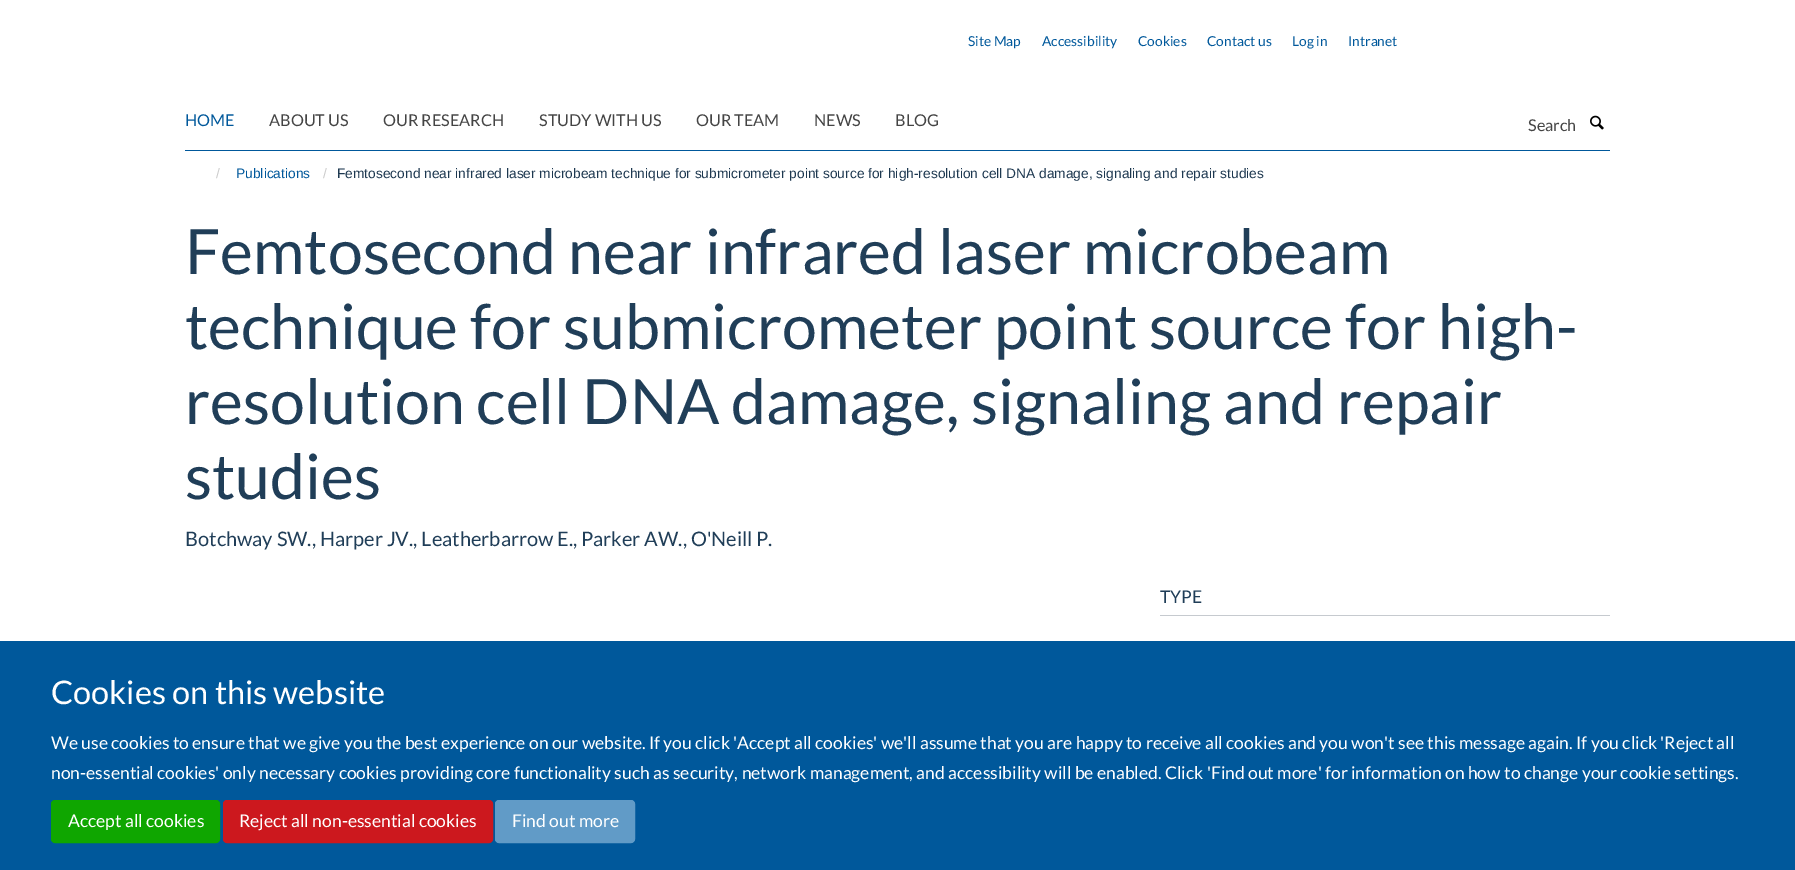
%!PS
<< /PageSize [1795 870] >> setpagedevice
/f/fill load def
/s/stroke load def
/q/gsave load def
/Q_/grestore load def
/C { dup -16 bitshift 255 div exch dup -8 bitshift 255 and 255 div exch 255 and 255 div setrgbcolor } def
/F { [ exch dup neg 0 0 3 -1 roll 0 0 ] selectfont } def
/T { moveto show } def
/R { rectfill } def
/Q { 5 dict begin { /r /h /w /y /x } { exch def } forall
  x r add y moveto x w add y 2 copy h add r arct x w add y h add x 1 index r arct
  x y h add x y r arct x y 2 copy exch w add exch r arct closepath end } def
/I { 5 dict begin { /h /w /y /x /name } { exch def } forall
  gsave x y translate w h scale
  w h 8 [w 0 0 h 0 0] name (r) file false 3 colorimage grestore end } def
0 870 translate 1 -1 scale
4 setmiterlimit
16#FFFFFF C
0 0 1795 870 R
/Lato-Regular 13.75 F
16#00589B C
(Site Map) 968 46 T
(Accessibility) 1042 46 T
(Cookies) 1138 46 T
(Contact us) 1207 46 T
(Log in) 1292 46 T
(Intranet) 1348 46 T
185 150 1425 1 R
/Lato-Regular 16.25 F
(HOME) 185 126 T
16#444444 C
(ABOUT US) 269 126 T
(OUR RESEARCH) 383 126 T
(STUDY WITH US) 539 126 T
(OUR TEAM) 696 126 T
(NEWS) 814 126 T
(BLOG) 895 126 T
(Search) 1528 131 T
(1.rgb) 1590 115 14 15 I
/LiberationSans-Regular 13.75 F
16#CCCCCC C
(/) 216 178 T
16#00589B C
(Publications) 236 178 T
16#CCCCCC C
(/) 323 178 T
16#1D3850 C
(Femtosecond near infrared laser microbeam technique for submicrometer point source for high-resolution cell DNA damage, signaling and repair studies) 337 178 T
/Lato-Regular 62.5 F
16#203E58 C
(Femtosecond near infrared laser microbeam) 185 274 T
(technique for submicrometer point source for high-) 185 349 T
(resolution cell DNA damage, signaling and repair) 185 424 T
(studies) 185 499 T
/Lato-Regular 20 F
(Botchway SW., Harper JV., Leatherbarrow E., Parker AW., O'Neill P.) 185 546 T
16#C6CACF C
1160 615 450 1 R
/Lato-Regular 17.5 F
16#203E58 C
(TYPE) 1160 603 T
16#00589B C
0 641 1795 229 R
/Lato-Regular 32.5 F
16#FFFFFF C
(Cookies on this website) 51 704 T
/Lato-Regular 17.5 F
(We use cookies to ensure that we give you the best experience on our website. If you click 'Accept all cookies' we'll assume that you are happy to receive all cookies and you won't see this message again. If you click 'Reject all) 51 749 T
(non-essential cookies' only necessary cookies providing core functionality such as security, network management, and accessibility will be enabled. Click 'Find out more' for information on how to change your cookie settings.) 51 779 T
16#0FA600 C
51.5 800.5 168 42 3.5 Q q f Q_
s
16#FFFFFF C
(Accept all cookies) 68 827 T
16#CC181E C
223.5 800.5 269 42 3.5 Q q f Q_
s
16#FFFFFF C
(Reject all non-essential cookies) 239 827 T
16#619BC7 C
495.5 800.5 139 42 3.5 Q q f Q_
s
16#FFFFFF C
(Find out more) 512 827 T
showpage
